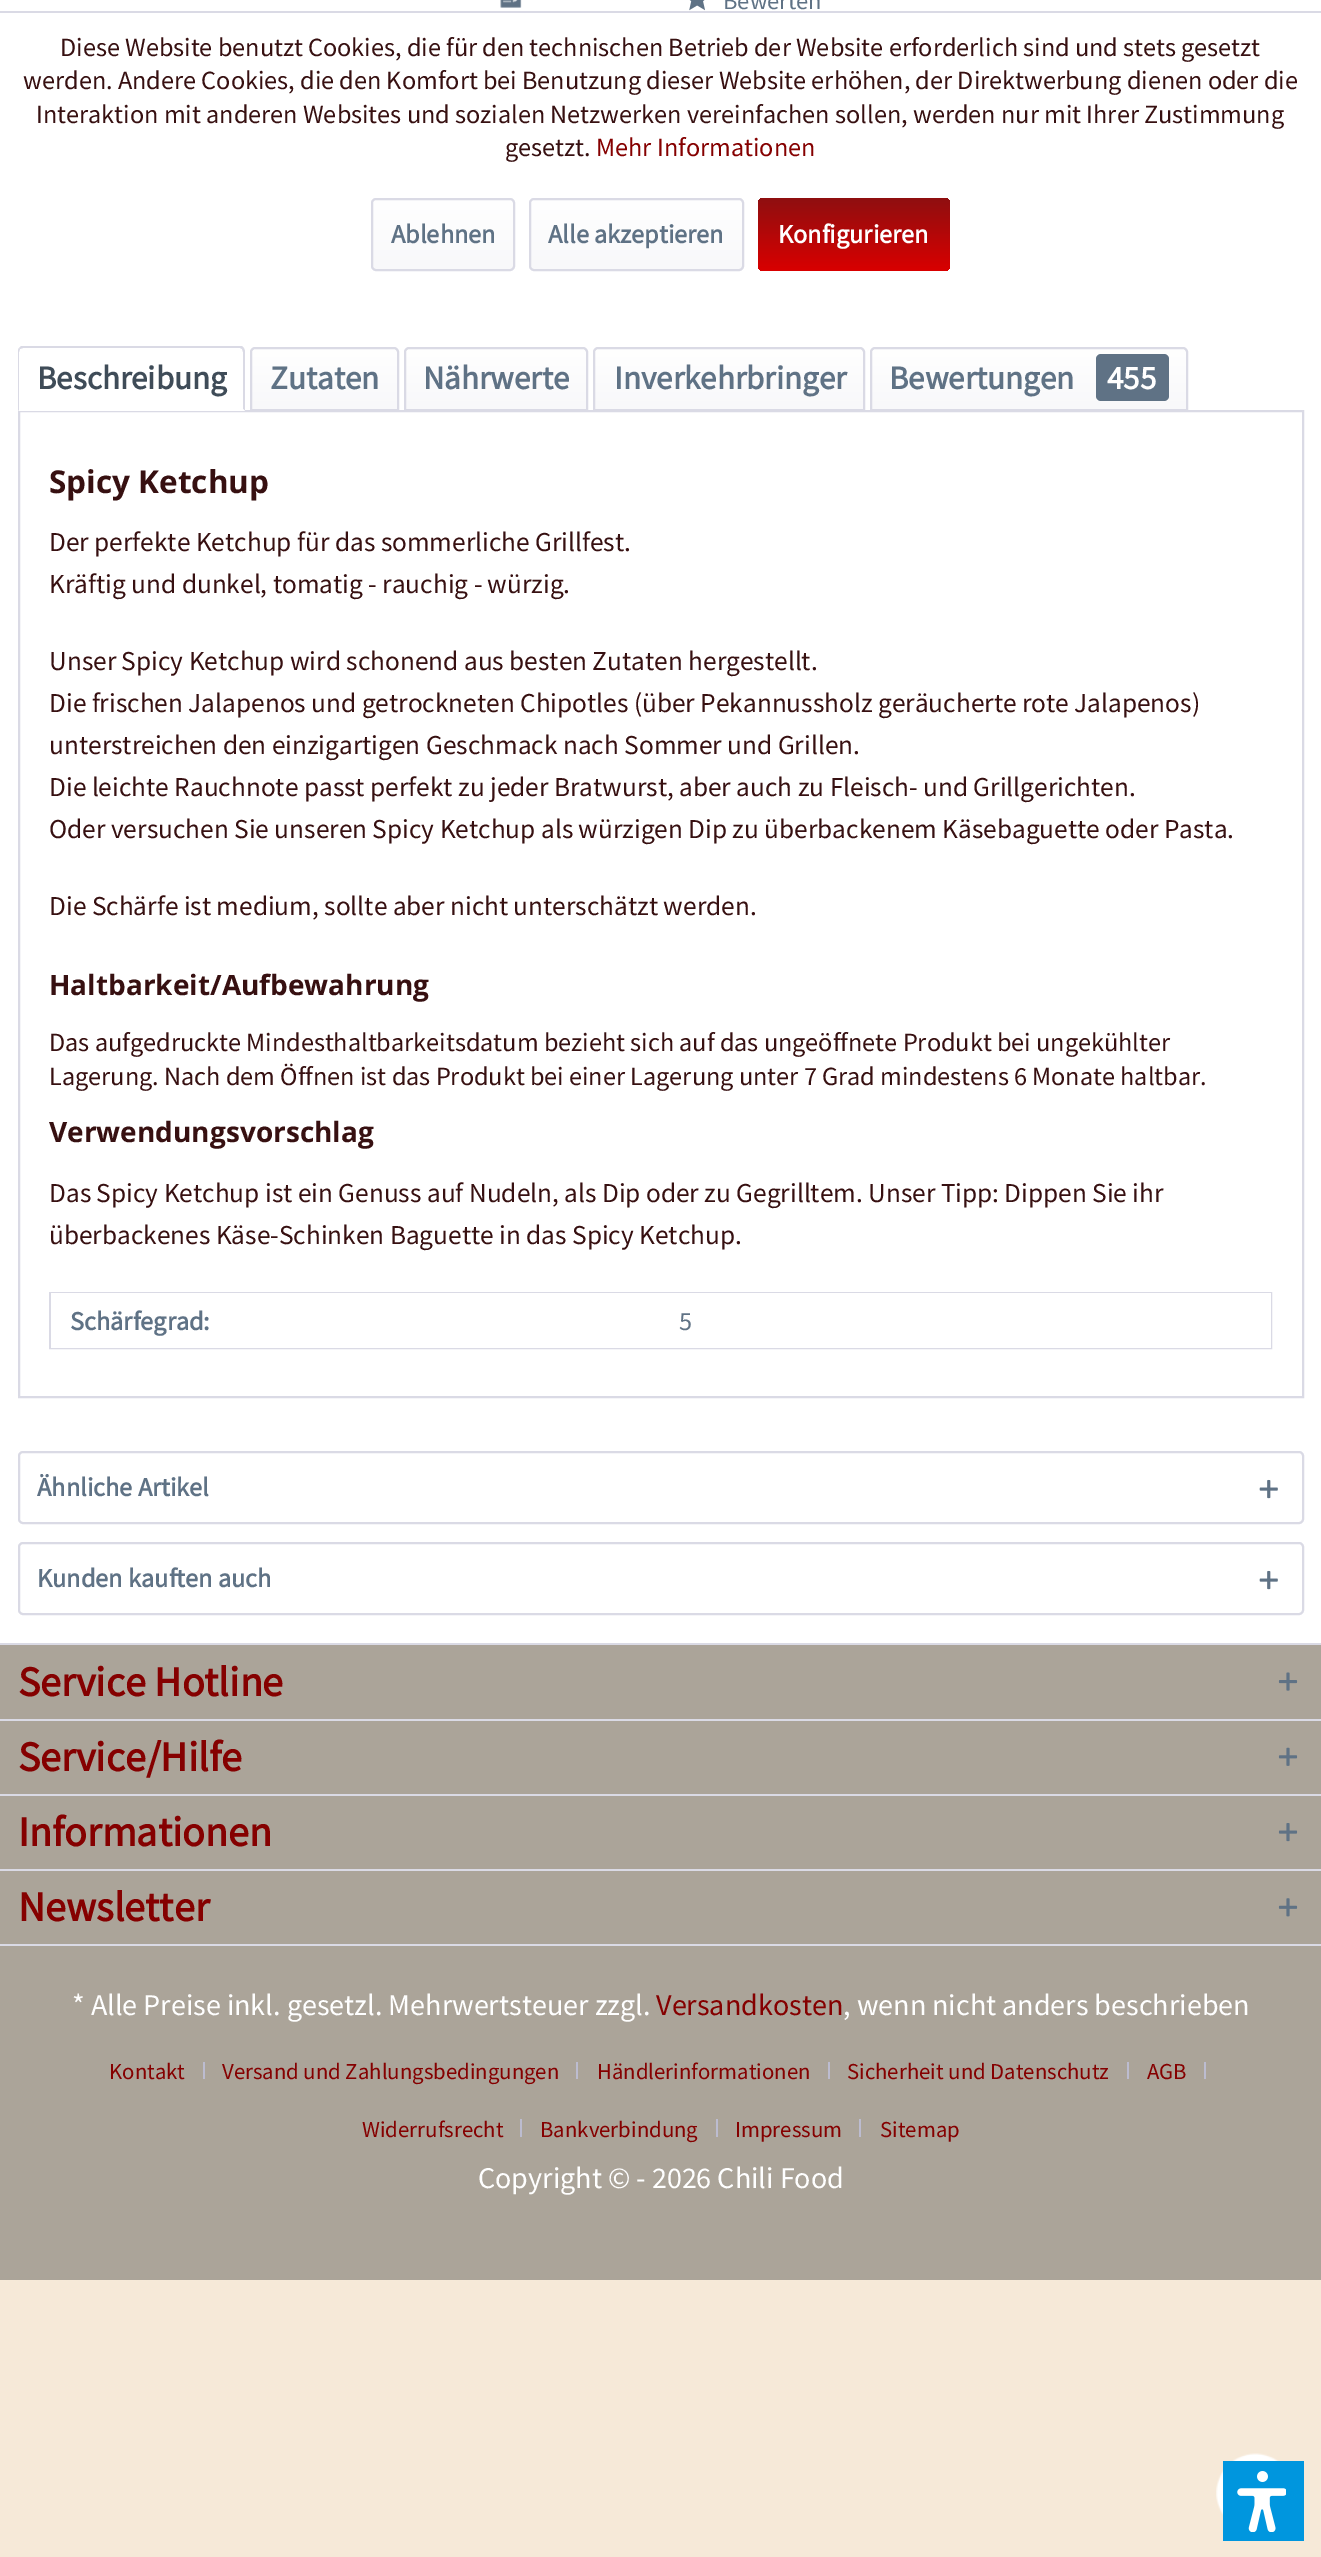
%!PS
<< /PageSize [1321 2557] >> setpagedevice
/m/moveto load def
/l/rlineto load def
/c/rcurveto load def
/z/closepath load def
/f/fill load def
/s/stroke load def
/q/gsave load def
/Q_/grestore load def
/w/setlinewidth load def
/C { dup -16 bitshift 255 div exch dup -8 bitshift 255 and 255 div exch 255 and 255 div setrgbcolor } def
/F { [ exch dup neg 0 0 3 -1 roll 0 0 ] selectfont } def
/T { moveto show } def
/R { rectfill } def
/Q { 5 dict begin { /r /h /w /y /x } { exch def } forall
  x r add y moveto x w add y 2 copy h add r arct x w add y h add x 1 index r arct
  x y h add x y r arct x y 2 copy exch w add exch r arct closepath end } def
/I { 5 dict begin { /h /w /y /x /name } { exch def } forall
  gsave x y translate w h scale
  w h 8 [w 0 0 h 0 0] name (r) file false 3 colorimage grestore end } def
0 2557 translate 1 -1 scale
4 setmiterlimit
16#F6E9D8 C
0 0 1321 2557 R
16#FFFFFF C
0 0 1321 1643 R
(1.rgb) 500 0 22 8 I
(2.rgb) 689 0 16 11 I
/SourceSansPro-Regular 24.5 F
16#5F7285 C
(Bewerten) 723 9 T
16#DADAE5 C
2 w
19 411 1284 986 rectstroke
16#FFFFFF C
23 347 m 217 0 l 3 0 5 2 5 5 c 0 59 l -227 0 l 0 -59 l 0 -3 2 -5 5 -5 c z f
16#DADAE5 C
23 348 m -3 1 l -1 -1 l 2 -2 l 221 0 l 2 2 l -2 1 l -2 -1 l z f
245 411 m 0 -59 l 0 -2 -1 -3 -1 -4 c -2 1 l 1 3 l 0 57 l z f
16#FFFFFF C
245 411 m -227 0 l 1 -1 l 224 0 l 0 -1 l z f
16#DADAE5 C
18 411 m 0 -59 l 0 -1 0 -3 1 -4 c 1 1 l -1 3 l 0 58 l z f
/SourceSansPro-Bold 33 F
16#3F4C58 C
(Beschreibung) 37 389 T
q 256 348 m 137 0 l 2 0 4 2 4 4 c 0 58 l -145 0 l 0 -58 l 0 -2 2 -4 4 -4 c z clip newpath
<< /ShadingType 2 /ColorSpace /DeviceRGB /Coords [325 348 325 410] /Extend [true true] /Function << /FunctionType 2 /Domain [0 1] /C0 [1 1 1] /C1 [.973 .973 .98] /N 1 >> >> shfill Q_
16#DADAE5 C
255 348 m 139 0 l 2 0 4 2 4 4 c 0 58 l -147 0 l 0 -58 l 0 -2 2 -4 4 -4 c z s
16#5F7285 C
(Zutaten) 270 389 T
q 410 348 m 172 0 l 2 0 4 2 4 4 c 0 58 l -180 0 l 0 -58 l 0 -2 2 -4 4 -4 c z clip newpath
<< /ShadingType 2 /ColorSpace /DeviceRGB /Coords [496 348 496 410] /Extend [true true] /Function << /FunctionType 2 /Domain [0 1] /C0 [1 1 1] /C1 [.973 .973 .98] /N 1 >> >> shfill Q_
16#DADAE5 C
409 348 m 174 0 l 2 0 4 2 4 4 c 0 58 l -182 0 l 0 -58 l 0 -2 2 -4 4 -4 c z s
16#5F7285 C
(Nährwerte) 423 389 T
q 599 348 m 260 0 l 2 0 4 2 4 4 c 0 58 l -268 0 l 0 -58 l 0 -2 2 -4 4 -4 c z clip newpath
<< /ShadingType 2 /ColorSpace /DeviceRGB /Coords [729 348 729 410] /Extend [true true] /Function << /FunctionType 2 /Domain [0 1] /C0 [1 1 1] /C1 [.973 .973 .98] /N 1 >> >> shfill Q_
16#DADAE5 C
598 348 m 262 0 l 2 0 4 2 4 4 c 0 58 l -270 0 l 0 -58 l 0 -2 2 -4 4 -4 c z s
16#5F7285 C
(Inverkehrbringer) 614 389 T
q 876 348 m 307 0 l 2 0 4 2 4 4 c 0 58 l -315 0 l 0 -58 l 0 -2 2 -4 4 -4 c z clip newpath
<< /ShadingType 2 /ColorSpace /DeviceRGB /Coords [1029 348 1029 410] /Extend [true true] /Function << /FunctionType 2 /Domain [0 1] /C0 [1 1 1] /C1 [.973 .973 .98] /N 1 >> >> shfill Q_
16#DADAE5 C
875 348 m 308 0 l 2 0 4 2 4 4 c 0 58 l -316 0 l 0 -58 l 0 -2 2 -4 4 -4 c z s
16#5F7285 C
(Bewertungen) 889 389 T
1096 354 73 47 5 Q f
16#FFFFFF C
(455) 1107 389 T
/OpenSans-Bold 31.5 F
16#371011 C
(Spicy Ketchup) 49 493 T
/SourceSansPro-Regular 27.3 F
(Der perfekte Ketchup für das sommerliche Grillfest.) 49 551 T
(Kräftig und dunkel, tomatig - rauchig - würzig.) 49 593 T
(Unser Spicy Ketchup wird schonend aus besten Zutaten hergestellt.) 49 670 T
(Die frischen Jalapenos und getrockneten Chipotles \(über Pekannussholz geräucherte rote Jalapenos\)) 49 712 T
(unterstreichen den einzigartigen Geschmack nach Sommer und Grillen.) 49 754 T
(Die leichte Rauchnote passt perfekt zu jeder Bratwurst, aber auch zu Fleisch- und Grillgerichten.) 49 796 T
(Oder versuchen Sie unseren Spicy Ketchup als würzigen Dip zu überbackenem Käsebaguette oder Pasta.) 49 838 T
(Die Schärfe ist medium, sollte aber nicht unterschätzt werden.) 49 915 T
/OpenSans-Bold 28 F
(Haltbarkeit/Aufbewahrung) 49 995 T
/SourceSansPro-Regular 26.25 F
(Das aufgedruckte Mindesthaltbarkeitsdatum bezieht sich auf das ungeöffnete Produkt bei ungekühlter) 49 1051 T
(Lagerung. Nach dem Öffnen ist das Produkt bei einer Lagerung unter 7 Grad mindestens 6 Monate haltbar.) 49 1085 T
/OpenSans-Bold 28 F
(Verwendungsvorschlag) 49 1142 T
/SourceSansPro-Regular 27.3 F
(Das Spicy Ketchup ist ein Genuss auf Nudeln, als Dip oder zu Gegrilltem. Unser Tipp: Dippen Sie ihr) 49 1202 T
(überbackenes Käse-Schinken Baguette in das Spicy Ketchup.) 49 1244 T
16#DADAE5 C
50 1293 1221 55 rectstroke
16#FFFFFF C
51 1293 1220 55 R
/SourceSansPro-Bold 26.25 F
16#5F7285 C
(Schärfegrad:) 70 1330 T
/SourceSansPro-Regular 26.25 F
(5) 679 1330 T
16#DADAE5 C
19 1452 1284 71 4 Q s
/SourceSansPro-Bold 26.25 F
16#5F7285 C
(Ähnliche Artikel) 37 1496 T
(3.rgb) 1259 1479 19 20 I
16#DADAE5 C
19 1543 1284 71 4 Q s
16#5F7285 C
(Kunden kauften auch) 37 1587 T
(3.rgb) 1259 1570 19 20 I
16#ABA499 C
0 1645 1321 635 R
16#DADAE5 C
0 1643 1321 2 R
/SourceSansPro-Bold 42 F
16#850000 C
(Service Hotline) 18 1696 T
(4.rgb) 1278 1672 20 19 I
16#DADAE5 C
0 1719 1321 2 R
16#850000 C
(Service/Hilfe) 18 1771 T
(5.rgb) 1278 1747 20 19 I
16#DADAE5 C
0 1794 1321 2 R
16#850000 C
(Informationen) 18 1846 T
(6.rgb) 1278 1823 20 19 I
16#DADAE5 C
0 1869 1321 2 R
0 1944 1321 2 R
16#850000 C
(Newsletter) 18 1921 T
(7.rgb) 1278 1898 20 19 I
/SourceSansPro-Regular 30.1 F
16#FFFFFF C
(* Alle Preise inkl. gesetzl. Mehrwertsteuer zzgl.) 72 2015 T
16#850000 C
(Versandkosten) 656 2015 T
16#FFFFFF C
(, wenn nicht anders beschrieben) 843 2015 T
/SourceSansPro-Regular 22.75 F
16#850000 C
(Kontakt) 109 2079 T
16#BCBCD0 C
203 2062 2 17 R
16#850000 C
(Versand und Zahlungsbedingungen) 222 2079 T
16#BCBCD0 C
576 2062 2 17 R
16#850000 C
(Händlerinformationen) 597 2079 T
16#BCBCD0 C
828 2062 2 17 R
16#850000 C
(Sicherheit und Datenschutz) 847 2079 T
16#BCBCD0 C
1127 2062 2 17 R
16#850000 C
(AGB) 1147 2079 T
16#BCBCD0 C
1204 2062 2 17 R
16#850000 C
(Widerrufsrecht) 362 2137 T
16#BCBCD0 C
520 2119 2 18 R
16#850000 C
(Bankverbindung) 540 2137 T
16#BCBCD0 C
716 2119 2 18 R
16#850000 C
(Impressum) 735 2137 T
16#BCBCD0 C
859 2119 2 18 R
16#850000 C
(Sitemap) 880 2137 T
/SourceSansPro-Regular 30.1 F
16#FFFFFF C
(Copyright © - 2026 Chili Food) 478 2188 T
16#DADAE5 C
0 11 1321 2 R
/SourceSansPro-Regular 26.25 F
16#371011 C
(Diese Website benutzt Cookies, die für den technischen Betrieb der Website erforderlich sind und stets gesetzt) 60 56 T
(werden. Andere Cookies, die den Komfort bei Benutzung dieser Website erhöhen, der Direktwerbung dienen oder die) 23 89 T
(Interaktion mit anderen Websites und sozialen Netzwerken vereinfachen sollen, werden nur mit Ihrer Zustimmung) 36 123 T
(gesetzt.) 505 156 T
16#850000 C
(Mehr Informationen) 596 156 T
q 373 200 140 70 4 Q clip newpath
<< /ShadingType 2 /ColorSpace /DeviceRGB /Coords [443 200 443 270] /Extend [true true] /Function << /FunctionType 2 /Domain [0 1] /C0 [1 1 1] /C1 [.973 .973 .98] /N 1 >> >> shfill Q_
16#DADAE5 C
372 199 142 71 4 Q s
/SourceSansPro-Bold 26.25 F
16#5F7285 C
(Ablehnen) 391 243 T
q 530 200 212 70 4 Q clip newpath
<< /ShadingType 2 /ColorSpace /DeviceRGB /Coords [636 200 636 270] /Extend [true true] /Function << /FunctionType 2 /Domain [0 1] /C0 [1 1 1] /C1 [.973 .973 .98] /N 1 >> >> shfill Q_
16#DADAE5 C
530 199 213 71 4 Q s
16#5F7285 C
(Alle akzeptieren) 548 243 T
q 758 198 192 73 5 Q clip newpath
<< /ShadingType 2 /ColorSpace /DeviceRGB /Coords [854 124 854 271] /Extend [true true] /Function << /FunctionType 2 /Domain [0 1] /C0 [.267 .122 .125] /C1 [.851 0 0] /N 1 >> >> shfill Q_
16#FFFFFF C
(Konfigurieren) 778 243 T
(8.rgb) 1216 2453 63 63 I
16#0096DE C
1223 2461 81 80 R
(9.rgb) 1237 2471 49 61 I
showpage
